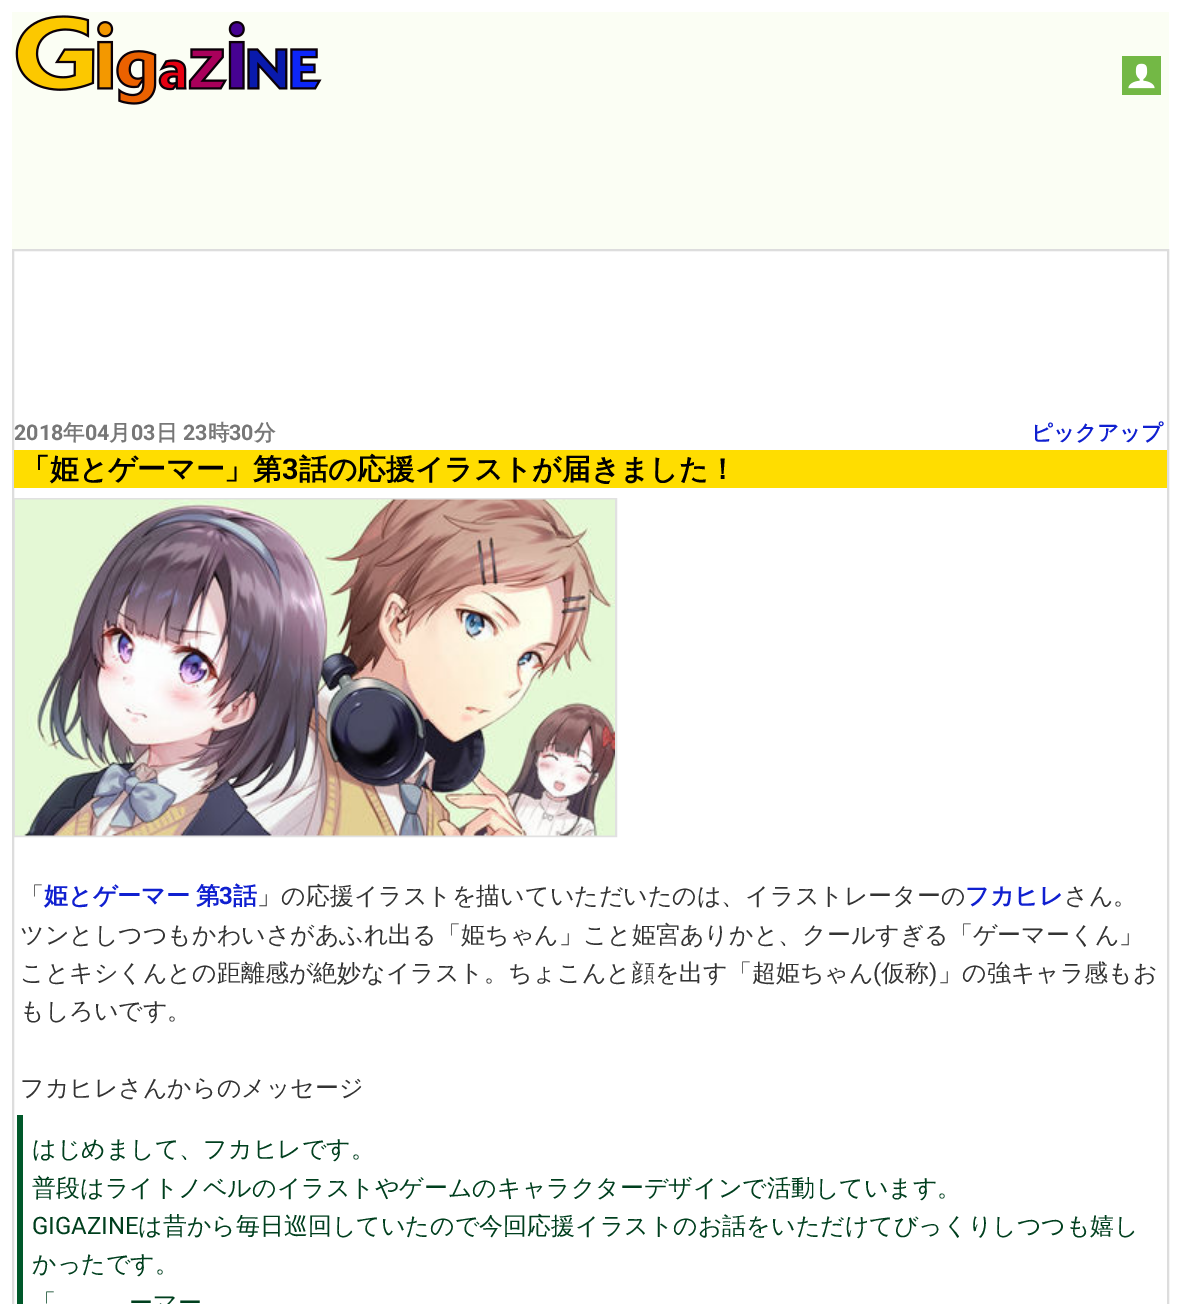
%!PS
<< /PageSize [1180 1304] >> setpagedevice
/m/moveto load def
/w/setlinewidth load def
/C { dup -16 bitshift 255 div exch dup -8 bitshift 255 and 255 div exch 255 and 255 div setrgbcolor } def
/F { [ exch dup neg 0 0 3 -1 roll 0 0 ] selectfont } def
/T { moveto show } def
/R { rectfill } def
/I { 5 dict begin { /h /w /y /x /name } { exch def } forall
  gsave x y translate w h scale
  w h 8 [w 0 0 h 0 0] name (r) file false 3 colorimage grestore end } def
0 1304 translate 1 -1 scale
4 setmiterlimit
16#FFFFFF C
0 0 1180 1304 R
16#FBFEF4 C
12 12 1157 237 R
(1.rgb) 15 15 307 90 I
16#73B845 C
1122 56 39 39 R
(2.rgb) 1128 63 27 26 I
16#DDDDDD C
2 w
13 250 1155 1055 rectstroke
/Roboto-Bold 21.5 F
16#777777 C
(2018) 14 440 T
/WenQuanYiZenHei-Bold 21.5 F
(年) 63 440 T
/Roboto-Bold 21.5 F
(04) 85 440 T
/WenQuanYiZenHei-Bold 21.5 F
(月) 109 440 T
/Roboto-Bold 21.5 F
(03) 131 440 T
/WenQuanYiZenHei-Bold 21.5 F
(日) 156 440 T
/Roboto-Bold 21.5 F
(23) 183 440 T
/WenQuanYiZenHei-Bold 21.5 F
(時) 208 440 T
/Roboto-Bold 21.5 F
(30) 229 440 T
/WenQuanYiZenHei-Bold 21.5 F
(分) 254 440 T
16#1020D0 C
(ピックアップ) 1031 440 T
16#FFDD00 C
14 450 1153 38 R
/WenQuanYiZenHei-Bold 28.75 F
16#000000 C
(「姫とゲーマー」第) 21 479 T
/Roboto-Bold 28.75 F
(3) 282 479 T
/WenQuanYiZenHei-Bold 28.75 F
(話の応援イラストが届きました！) 299 479 T
16#E1E1E1 C
15 499 601 337 rectstroke
(3.rgb) 15 499 600 337 I
/WenQuanYiZenHei-Medium 24 F
16#333333 C
(「) 20 904 T
/WenQuanYiZenHei-Bold 24 F
16#1020D0 C
44 904 m -1 0 32 (姫とゲーマー 第) widthshow
/Roboto-Bold 24 F
(3) 219 904 T
/WenQuanYiZenHei-Bold 24 F
(話) 233 904 T
/WenQuanYiZenHei-Medium 24 F
16#333333 C
(」の応援イラストを描いていただいたのは、イラストレーターの) 257 904 T
/WenQuanYiZenHei-Bold 24 F
16#1020D0 C
(フカヒレ) 965 904 T
/WenQuanYiZenHei-Medium 24 F
16#333333 C
(さん。) 1064 904 T
(ツンとしつつもかわいさがあふれ出る「姫ちゃん」こと姫宮ありかと、クールすぎる「ゲーマーくん」) 20 943 T
(ことキシくんとの距離感が絶妙なイラスト。ちょこんと顔を出す「超姫ちゃん) 20 981 T
/Roboto-Regular 24 F
(\() 873 981 T
/WenQuanYiZenHei-Medium 24 F
(仮称) 881 981 T
/Roboto-Regular 24 F
(\)) 929 981 T
/WenQuanYiZenHei-Medium 24 F
(」の強キャラ感もお) 938 981 T
(もしろいです。) 20 1019 T
(フカヒレさんからのメッセージ) 20 1096 T
16#00582A C
17 1115 6 189 R
16#003F1E C
(はじめまして、フカヒレです。) 32 1157 T
(普段はライトノベルのイラストやゲームのキャラクターデザインで活動しています。) 32 1196 T
/Roboto-Regular 24 F
(GIGAZINE) 32 1234 T
/WenQuanYiZenHei-Medium 24 F
(は昔から毎日巡回していたので今回応援イラストのお話をいただけてびっくりしつつも嬉し) 138 1234 T
(かったです。) 32 1272 T
(「) 32 1311 T
(ーマー) 129 1311 T
showpage
